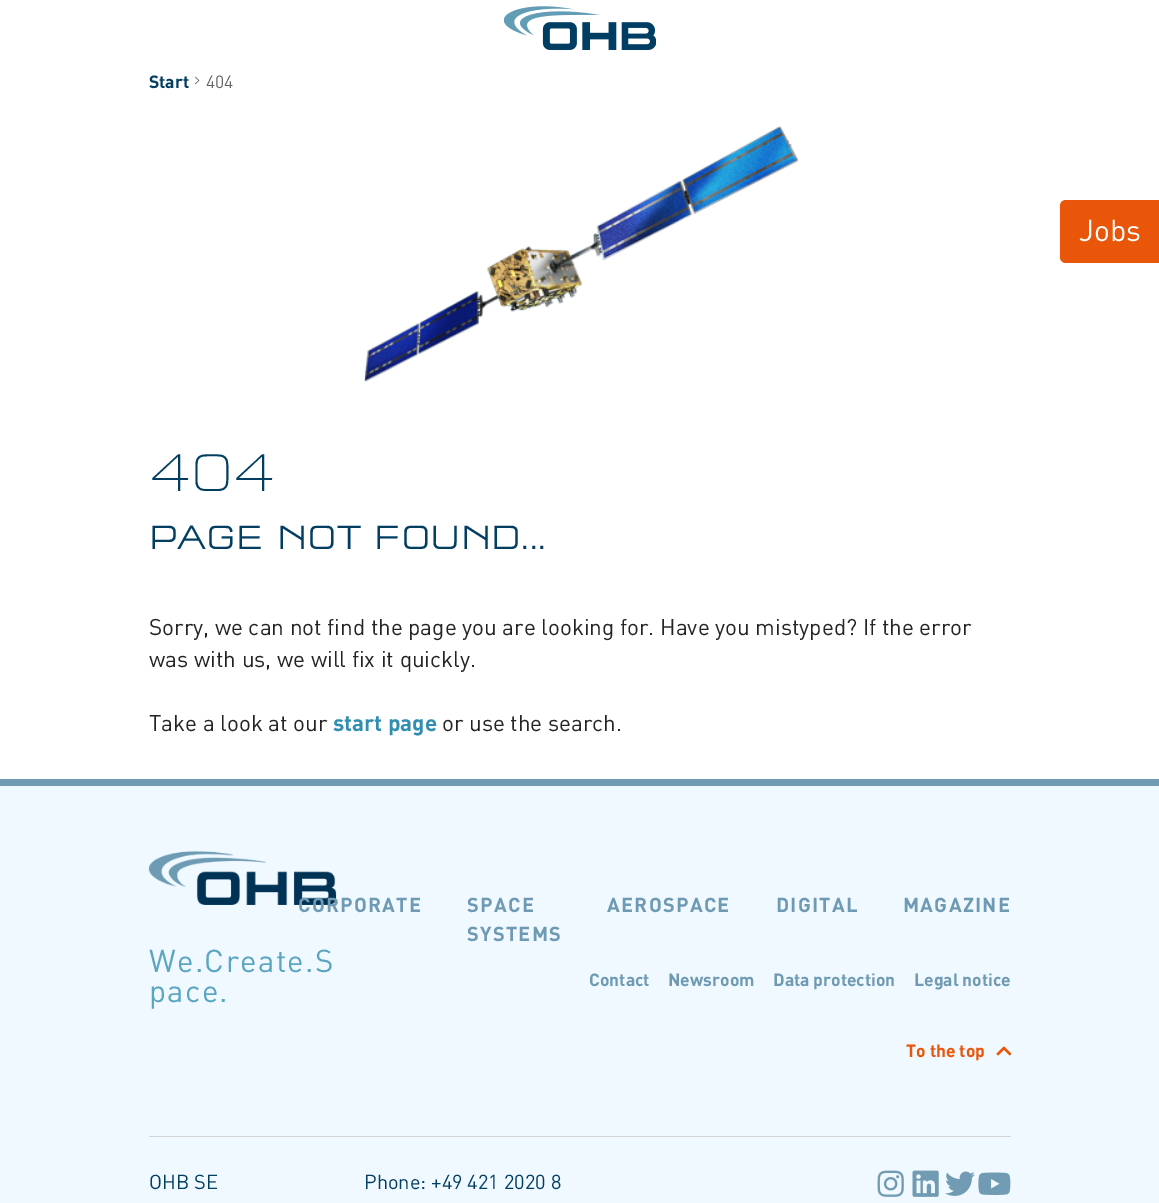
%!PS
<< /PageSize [1159 1203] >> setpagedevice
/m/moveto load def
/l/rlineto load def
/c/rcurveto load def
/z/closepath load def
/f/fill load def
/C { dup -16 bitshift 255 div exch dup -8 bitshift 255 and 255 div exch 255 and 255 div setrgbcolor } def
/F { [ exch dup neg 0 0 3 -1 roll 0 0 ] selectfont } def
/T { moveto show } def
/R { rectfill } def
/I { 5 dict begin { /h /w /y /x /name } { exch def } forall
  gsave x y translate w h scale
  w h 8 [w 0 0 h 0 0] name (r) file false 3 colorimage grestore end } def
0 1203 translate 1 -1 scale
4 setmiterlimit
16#FFFFFF C
0 0 1159 1203 R
(1.rgb) 504 6 152 44 I
/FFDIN-Regular 17.5 F
16#023E62 C
(Start) 149 88 T
(2.rgb) 195 76 5 9 I
/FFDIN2-Regular 17.5 F
16#666664 C
(404) 206 88 T
(3.rgb) 364 126 435 256 I
/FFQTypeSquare-Regular 55 F
16#023E62 C
(404) 149 491 T
/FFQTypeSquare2-Regular 35 F
(PAGE NOT FOUND...) 149 549 T
/FFDIN2-Regular 22.5 F
16#242424 C
(Sorry, we can not find the page you are looking for. Have you mistyped? If the error) 149 635 T
(was with us, we will fix it quickly.) 149 667 T
(Take a look at our) 149 731 T
/FFDIN-Regular 22.5 F
16#318EB0 C
(start page) 333 731 T
/FFDIN2-Regular 22.5 F
16#242424 C
(or use the search.) 442 731 T
16#F0F9FF C
0 786 1159 417 R
16#709BB3 C
0 779 1159 7 R
16#E95509 C
1066 200 m 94 0 l 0 63 l -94 0 l -3.5 0 -6 -2.5 -6 -6 c 0 -51 l 0 -3.5 2.5 -6 6 -6 c z f
/FFDIN2-Regular 30 F
16#FFFFFF C
(Jobs) 1079 241 T
(4.rgb) 148 851 189 54 I
/FFDIN2-Regular 31.25 F
16#5AA5C0 C
149 972 m 1.25 0 (We.Create.S) ashow
149 1002 m 1.25 0 (pace.) ashow
/FFDIN-Regular 20 F
16#6E9AB4 C
298 912 m 1.25 0 (CORPORATE) ashow
467 912 m 1.25 0 (SPACE) ashow
467 941 m 1.25 0 (SYSTEMS) ashow
607 912 m 1.25 0 (AEROSPACE) ashow
776 912 m 1.25 0 (DIGITAL) ashow
903 912 m 1.25 0 (MAGAZINE) ashow
/FFDIN-Regular 17.5 F
(Contact) 589 986 T
(Newsroom) 668 986 T
(Data protection) 773 986 T
(Legal notice) 914 986 T
16#E95509 C
(To the top) 906 1057 T
(5.rgb) 996 1046 15 10 I
16#D4D4D4 C
149 1136 862 1 R
/FFDIN2-Regular 20 F
16#023E62 C
(OHB SE) 149 1189 T
(Phone: +49 421 2020 8) 364 1189 T
(6.rgb) 877 1170 27 27 I
(7.rgb) 912 1170 27 27 I
(8.rgb) 945 1171 30 25 I
(9.rgb) 978 1172 33 23 I
showpage
